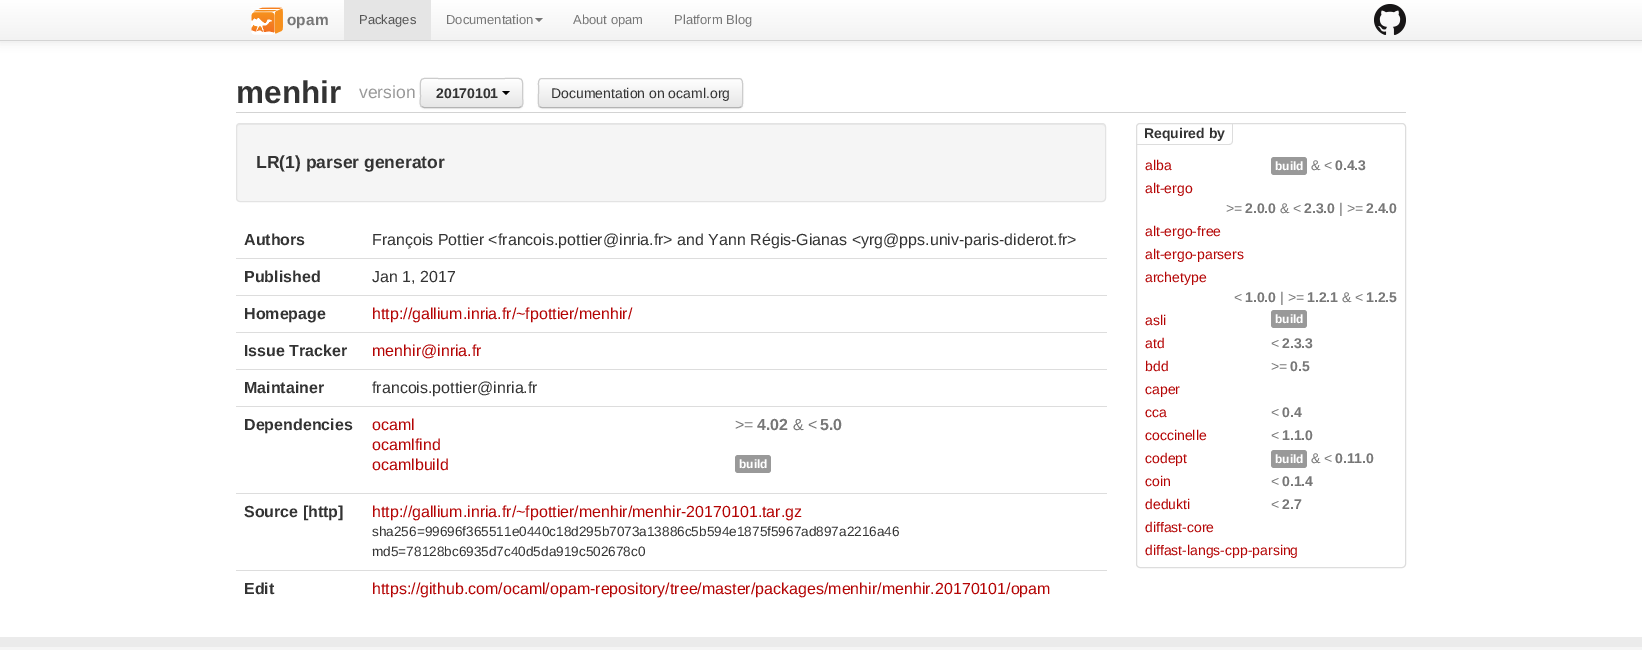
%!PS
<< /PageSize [1642 650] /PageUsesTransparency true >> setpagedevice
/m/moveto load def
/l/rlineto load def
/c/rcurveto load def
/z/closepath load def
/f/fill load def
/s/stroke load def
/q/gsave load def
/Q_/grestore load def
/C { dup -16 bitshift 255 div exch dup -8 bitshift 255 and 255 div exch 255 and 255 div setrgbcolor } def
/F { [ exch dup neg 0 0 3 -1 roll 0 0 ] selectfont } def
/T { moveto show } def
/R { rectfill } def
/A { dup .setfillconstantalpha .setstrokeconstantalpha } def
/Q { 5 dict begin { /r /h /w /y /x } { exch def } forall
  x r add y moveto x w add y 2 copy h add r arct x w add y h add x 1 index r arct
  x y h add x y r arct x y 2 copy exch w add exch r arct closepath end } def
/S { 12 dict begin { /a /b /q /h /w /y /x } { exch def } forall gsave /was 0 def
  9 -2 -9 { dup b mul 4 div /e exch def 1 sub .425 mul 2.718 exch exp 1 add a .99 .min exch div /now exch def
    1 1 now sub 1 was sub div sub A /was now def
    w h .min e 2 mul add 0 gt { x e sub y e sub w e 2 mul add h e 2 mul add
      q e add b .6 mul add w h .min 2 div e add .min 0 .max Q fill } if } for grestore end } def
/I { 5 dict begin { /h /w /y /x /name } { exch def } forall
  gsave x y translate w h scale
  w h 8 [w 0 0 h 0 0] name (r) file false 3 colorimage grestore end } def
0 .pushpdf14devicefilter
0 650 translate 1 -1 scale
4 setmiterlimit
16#FFFFFF C
0 0 1642 650 R
16#000000 C
0 1 1642 41 0 5 .1 S
q 0 0 m 1642 0 l 0 40 l -1642 0 l z clip newpath
<< /ShadingType 2 /ColorSpace /DeviceRGB /Coords [821 0 821 40] /Extend [true true] /Function << /FunctionType 2 /Domain [0 1] /C0 [1 1 1] /C1 [.949 .949 .949] /N 1 >> >> shfill Q_
16#D4D4D4 C
0 40 1642 1 R
(1.rgb) 251 7 32 28 I
/LiberationSans-Bold 15.5 F
16#777777 C
(opam) 287 25 T
16#E5E5E5 C
344 0 87 40 R
/LiberationSans-Regular 13 F
16#555555 C
(Packages) 359 24 T
16#777777 C
(Documentation) 446 24 T
535 18 m 8 0 l -4 4 l z f
(About opam) 573 24 T
(Platform Blog) 674 24 T
(2.rgb) 1374 4 32 31 I
16#D3D3D3 C
236 112 1170 1 R
/LiberationSans-Bold 31.5 F
16#333333 C
(menhir) 236 103 T
/LiberationSans-Regular 17.5 F
16#999999 C
(version) 359 98 T
16#000000 C
420 79 103 30 4 1 .05 S
16#F5F5F5 C
420 78 103 30 4 Q f
q
420 78 103 30 4 Q clip newpath
q 420 79 m 103 0 l 0 28 l -103 0 l z clip newpath
<< /ShadingType 2 /ColorSpace /DeviceRGB /Coords [472 79 472 107] /Extend [true true] /Function << /FunctionType 2 /Domain [0 1] /C0 [1 1 1] /C1 [.902 .902 .902] /N 1 >> >> shfill Q_
Q_
16#B3B3B3 C
521.5 106.5 m -2 1 l -79.5 0 l -16 0 l -2.5 -1 l s
16#CCCCCC C
421.5 106.5 m -2.5 -2.5 -1 -7 -1 -10 c 0 -21.5 -3.5 -18 19.5 -18 c 63 0 l 23 0 19.5 -3.5 19.5 18 c 0 3 1.5 7.5 -1 10 c s
/LiberationSans-Bold 14 F
16#333333 C
(20170101) 436 98 T
16#000000 C
502 91 m 8 0 l -4 4 l z f
538 79 205 30 4 1 .05 S
q
538 78 205 30 4 Q clip newpath
q 538 79 m 205 0 l 0 28 l -205 0 l z clip newpath
<< /ShadingType 2 /ColorSpace /DeviceRGB /Coords [641 79 641 107] /Extend [true true] /Function << /FunctionType 2 /Domain [0 1] /C0 [1 1 1] /C1 [.902 .902 .902] /N 1 >> >> shfill Q_
Q_
16#B3B3B3 C
741.5 106.5 m -.5 .5 -1.5 1 -2.5 1 c -197 0 l -1 0 -2 -.5 -2.5 -1 c s
16#CCCCCC C
539.5 106.5 m -2 -2 -1 -10.5 -1 -13.5 c 0 -7.5 l 0 -2.5 -.5 -7 3.5 -7 c 197 0 l 4 0 3.5 4.5 3.5 7 c 0 7.5 l 0 3 1 11.5 -1 13.5 c s
/LiberationSans-Regular 14 F
16#333333 C
(Documentation on ocaml.org) 551 98 T
16#F5F5F5 C
236 123 870 79 4 Q f
16#E9E9E9 C
240 125 m 862 0 l 2 0 3 1 3 3 c 0 -2 -1 -4 -3 -4 c -862 0 l -2 0 -3 2 -3 4 c 0 -2 1 -3 3 -3 c z f
16#E3E3E3 C
236.5 123.5 869 78 3.5 Q s
/LiberationSans-Bold 17.5 F
16#333333 C
(LR\(1\) parser generator) 256 168 T
/LiberationSans-Bold 16 F
(Authors) 244 245 T
/LiberationSans-Regular 16 F
(François Pottier <francois.pottier@inria.fr> and Yann Régis-Gianas <yrg@pps.univ-paris-diderot.fr>) 372 245 T
/LiberationSans-Bold 16 F
(Published) 244 282 T
16#DDDDDD C
236 258 871 1 R
/LiberationSans-Regular 16 F
16#333333 C
(Jan 1, 2017) 372 282 T
/LiberationSans-Bold 16 F
(Homepage) 244 319 T
16#DDDDDD C
236 295 871 1 R
/LiberationSans-Regular 16 F
16#B40404 C
(http://gallium.inria.fr/~fpottier/menhir/) 372 319 T
/LiberationSans-Bold 16 F
16#333333 C
(Issue Tracker) 244 356 T
16#DDDDDD C
236 332 871 1 R
/LiberationSans-Regular 16 F
16#B40404 C
(menhir@inria.fr) 372 356 T
/LiberationSans-Bold 16 F
16#333333 C
(Maintainer) 244 393 T
16#DDDDDD C
236 369 871 1 R
/LiberationSans-Regular 16 F
16#333333 C
(francois.pottier@inria.fr) 372 393 T
/LiberationSans-Bold 16 F
(Dependencies) 244 430 T
16#DDDDDD C
236 406 871 1 R
/LiberationSans-Regular 16 F
16#B40404 C
(ocaml) 372 430 T
16#777777 C
(>=) 735 430 T
/LiberationSans-Bold 16 F
(4.02) 757 430 T
/LiberationSans-Regular 16 F
(& <) 793 430 T
/LiberationSans-Bold 16 F
(5.0) 820 430 T
/LiberationSans-Regular 16 F
16#B40404 C
(ocamlfind) 372 450 T
(ocamlbuild) 372 470 T
16#999999 C
735 455 36 18 3 Q f
/LiberationSans-Bold 12 F
16#FFFFFF C
(build) 739 468 T
/LiberationSans-Bold 16 F
16#333333 C
(Source [http]) 244 517 T
16#DDDDDD C
236 493 871 1 R
/LiberationSans-Regular 16 F
16#B40404 C
(http://gallium.inria.fr/~fpottier/menhir/menhir-20170101.tar.gz) 372 517 T
/LiberationSans-Regular 13.6 F
16#333333 C
(sha256=99696f365511e0440c18d295b7073a13886c5b594e1875f5967ad897a2216a46) 372 536 T
(md5=78128bc6935d7c40d5da919c502678c0) 372 556 T
/LiberationSans-Bold 16 F
(Edit) 244 594 T
16#DDDDDD C
236 570 871 1 R
/LiberationSans-Regular 16 F
16#B40404 C
(https://github.com/ocaml/opam-repository/tree/master/packages/menhir/menhir.20170101/opam) 372 594 T
16#DDDDDD C
1136.5 123.5 269 444 3.5 Q s
1233 124 m 0 17 l 0 2 -2 4 -4 4 c -92 0 l 0 -1 l 92 0 l 2 0 3 -1 3 -3 c 0 -17 l z f
/LiberationSans-Bold 14 F
16#333333 C
(Required by) 1144 138 T
/LiberationSans-Regular 14 F
16#B40404 C
(alba) 1145 170 T
16#999999 C
1271 157 36 18 3 Q f
/LiberationSans-Bold 12 F
16#FFFFFF C
(build) 1275 170 T
/LiberationSans-Regular 14 F
16#777777 C
(& <) 1311 170 T
/LiberationSans-Bold 14 F
(0.4.3) 1335 170 T
/LiberationSans-Regular 14 F
16#B40404 C
(alt-ergo) 1145 193 T
16#777777 C
(>=) 1226 213 T
/LiberationSans-Bold 14 F
(2.0.0) 1245 213 T
/LiberationSans-Regular 14 F
(& <) 1280 213 T
/LiberationSans-Bold 14 F
(2.3.0) 1304 213 T
/LiberationSans-Regular 14 F
(| >=) 1339 213 T
/LiberationSans-Bold 14 F
(2.4.0) 1366 213 T
/LiberationSans-Regular 14 F
16#B40404 C
(alt-ergo-free) 1145 236 T
(alt-ergo-parsers) 1145 259 T
(archetype) 1145 282 T
16#777777 C
(<) 1234 302 T
/LiberationSans-Bold 14 F
(1.0.0) 1245 302 T
/LiberationSans-Regular 14 F
(| >=) 1280 302 T
/LiberationSans-Bold 14 F
(1.2.1) 1307 302 T
/LiberationSans-Regular 14 F
(& <) 1342 302 T
/LiberationSans-Bold 14 F
(1.2.5) 1366 302 T
/LiberationSans-Regular 14 F
16#B40404 C
(asli) 1145 325 T
16#999999 C
1271 310 36 18 3 Q f
/LiberationSans-Bold 12 F
16#FFFFFF C
(build) 1275 323 T
/LiberationSans-Regular 14 F
16#B40404 C
(atd) 1145 348 T
16#777777 C
(<) 1271 348 T
/LiberationSans-Bold 14 F
(2.3.3) 1282 348 T
/LiberationSans-Regular 14 F
16#B40404 C
(bdd) 1145 371 T
16#777777 C
(>=) 1271 371 T
/LiberationSans-Bold 14 F
(0.5) 1290 371 T
/LiberationSans-Regular 14 F
16#B40404 C
(caper) 1145 394 T
(cca) 1145 417 T
16#777777 C
(<) 1271 417 T
/LiberationSans-Bold 14 F
(0.4) 1282 417 T
/LiberationSans-Regular 14 F
16#B40404 C
(coccinelle) 1145 440 T
16#777777 C
(<) 1271 440 T
/LiberationSans-Bold 14 F
(1.1.0) 1282 440 T
/LiberationSans-Regular 14 F
16#B40404 C
(codept) 1145 463 T
16#999999 C
1271 450 36 18 3 Q f
/LiberationSans-Bold 12 F
16#FFFFFF C
(build) 1275 463 T
/LiberationSans-Regular 14 F
16#777777 C
(& <) 1311 463 T
/LiberationSans-Bold 14 F
(0.11.0) 1335 463 T
/LiberationSans-Regular 14 F
16#B40404 C
(coin) 1145 486 T
16#777777 C
(<) 1271 486 T
/LiberationSans-Bold 14 F
(0.1.4) 1282 486 T
/LiberationSans-Regular 14 F
16#B40404 C
(dedukti) 1145 509 T
16#777777 C
(<) 1271 509 T
/LiberationSans-Bold 14 F
(2.7) 1282 509 T
/LiberationSans-Regular 14 F
16#B40404 C
(diffast-core) 1145 532 T
(diffast-langs-cpp-parsing) 1145 555 T
16#F5F5F5 C
0 647 1642 3 R
16#EBEBEB C
0 637 1642 10 R
.poppdf14devicefilter showpage
